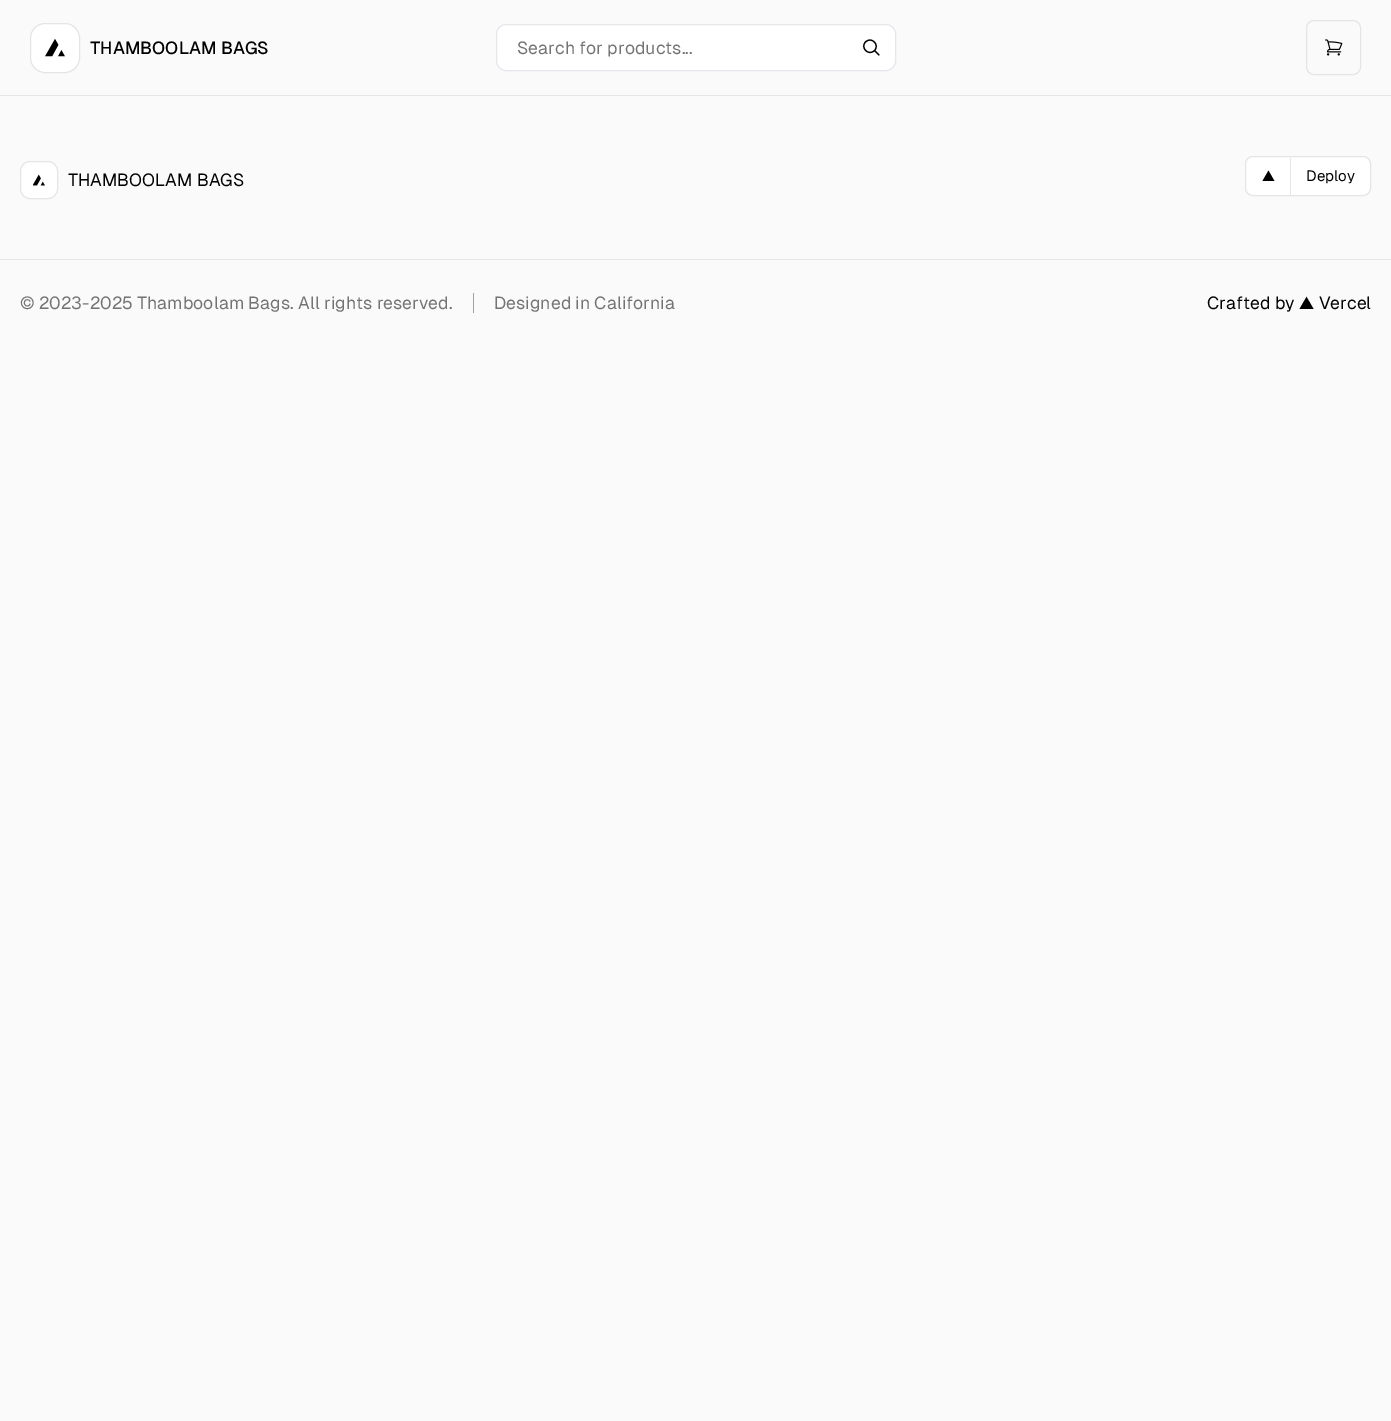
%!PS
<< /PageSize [1391 1421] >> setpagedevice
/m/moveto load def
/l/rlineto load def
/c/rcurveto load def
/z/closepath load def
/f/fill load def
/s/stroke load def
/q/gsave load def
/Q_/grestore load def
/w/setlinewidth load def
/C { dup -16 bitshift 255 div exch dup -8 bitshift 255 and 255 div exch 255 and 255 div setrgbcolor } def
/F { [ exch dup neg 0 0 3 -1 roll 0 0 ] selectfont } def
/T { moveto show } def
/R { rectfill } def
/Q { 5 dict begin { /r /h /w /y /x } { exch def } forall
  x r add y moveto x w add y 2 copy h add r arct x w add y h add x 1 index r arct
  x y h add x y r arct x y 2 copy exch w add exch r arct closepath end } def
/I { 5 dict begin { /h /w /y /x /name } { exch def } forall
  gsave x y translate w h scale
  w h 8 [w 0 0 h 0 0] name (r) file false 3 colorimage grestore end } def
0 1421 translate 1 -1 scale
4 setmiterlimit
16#FAFAFA C
0 0 1391 1421 R
16#FFFFFF C
30.5 23.5 49 49 14.5 Q q f Q_
16#E5E5E5 C
s
(1.rgb) 45 39 20 18 I
/Geist-Medium 17.5 F
16#000000 C
(THAMBOOLAM BAGS) 90 54 T
16#FFFFFF C
496.5 24.5 399 46 9.5 Q q f Q_
16#E5E7EB C
s
/Geist-Regular 17.5 F
16#737373 C
(Search for products...) 517 54 T
16#000000 C
1.2 w
1 setlinecap
1 setlinejoin
879 55 m -4.5 -4.5 l 874.5 50.5 m 5.5 -5.5 -3 -14.5 -9 -8.5 c -5.5 5.5 3 14.5 9 8.5 c z s
16#E5E5E5 C
1 w
0 setlinecap
0 setlinejoin
1306.5 20.5 54 54 7.5 Q s
(2.rgb) 1325 39 18 17 I
0 95 1391 1 R
16#FFFFFF C
20.5 161.5 37 37 9.5 Q q f Q_
16#E5E5E5 C
s
(3.rgb) 33 174 12 12 I
16#000000 C
(THAMBOOLAM BAGS) 68 186 T
16#FFFFFF C
1245.5 156.5 125 39 7.5 Q q f Q_
16#E5E5E5 C
s
/Geist-Regular 15 F
16#000000 C
(▲) 1262 181 T
16#E5E5E5 C
1290 158 1 37 R
16#000000 C
(Deploy) 1306 181 T
16#E5E5E5 C
0 259 1391 1 R
/Geist-Regular 17.5 F
16#737373 C
(© 2023-2025 Thamboolam Bags. All rights reserved.) 20 309 T
16#A3A3A3 C
473 293 1 20 R
16#737373 C
(Designed in California) 494 309 T
16#000000 C
(Crafted by ▲ Vercel) 1207 309 T
showpage
